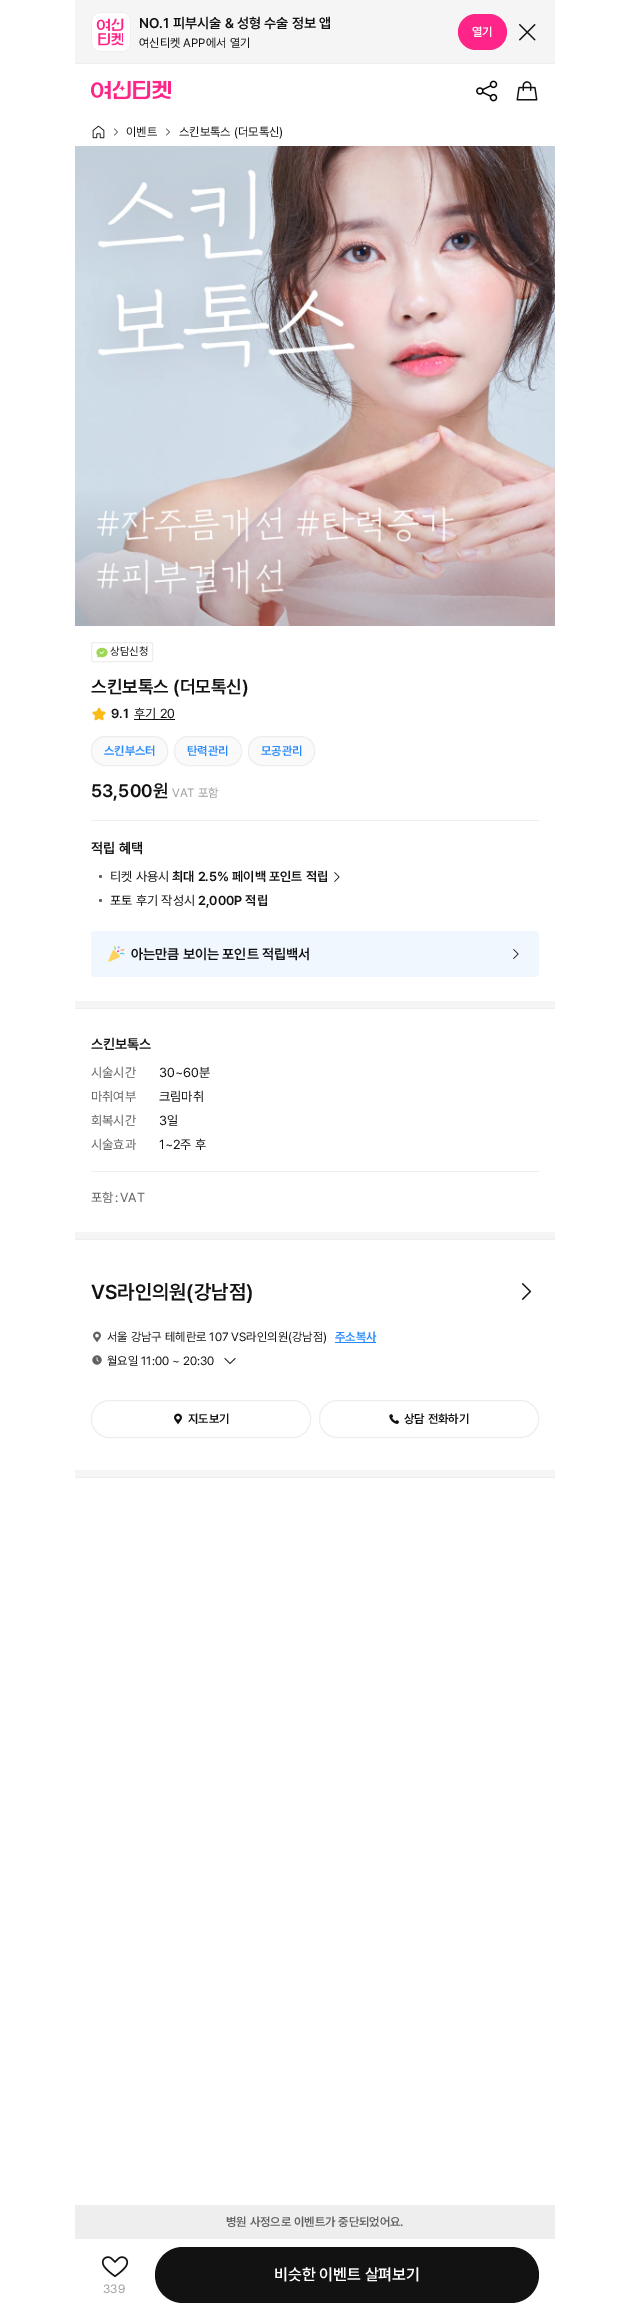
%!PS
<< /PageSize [629 2315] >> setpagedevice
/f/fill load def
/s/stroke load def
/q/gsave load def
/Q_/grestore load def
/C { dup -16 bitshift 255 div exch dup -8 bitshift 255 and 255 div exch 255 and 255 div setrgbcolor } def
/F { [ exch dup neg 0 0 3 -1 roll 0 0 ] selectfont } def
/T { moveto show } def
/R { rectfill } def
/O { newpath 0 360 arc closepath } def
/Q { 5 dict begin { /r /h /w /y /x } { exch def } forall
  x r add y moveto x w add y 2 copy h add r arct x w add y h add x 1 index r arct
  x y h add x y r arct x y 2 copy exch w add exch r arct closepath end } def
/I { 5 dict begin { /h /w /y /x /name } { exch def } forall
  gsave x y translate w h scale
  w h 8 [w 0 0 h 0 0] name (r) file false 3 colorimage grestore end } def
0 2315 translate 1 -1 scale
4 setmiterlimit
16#FFFFFF C
0 0 629 2315 R
16#F5F5F5 C
75 0 480 63 R
16#EEEEEE C
75 63 480 1 R
(1.rgb) 91 12 40 40 I
/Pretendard-SemiBold 14 F
16#121212 C
(NO.1 피부시술 & 성형 수술 정보 앱) 139 28 T
/Pretendard-Regular 12 F
(여신티켓 APP에서 열기) 139 47 T
16#FF2488 C
458 14 49 36 18 Q f
/Pretendard-SemiBold 12 F
16#FFFFFF C
(열기) 472 36 T
(2.rgb) 519 24 17 17 I
(3.rgb) 91 80 80 20 I
(4.rgb) 476 80 22 22 I
(5.rgb) 516 81 22 20 I
(6.rgb) 92 125 13 14 I
(7.rgb) 114 128 4 8 I
/Pretendard-Regular 12 F
16#121212 C
(이벤트) 126 136 T
(7.rgb) 166 128 4 8 I
(스킨보톡스 \(더모톡신\)) 179 136 T
(8.rgb) 75 146 480 480 I
16#EEEEEE C
91.5 642.5 61 19 1.5 Q s
(9.rgb) 96 647 12 11 I
/Pretendard-Regular 11 F
16#121212 C
(상담신청) 110 655 T
/Pretendard-SemiBold 18 F
(스킨보톡스 \(더모톡신\)) 91 693 T
(10.rgb) 92 707 14 14 I
/Pretendard-SemiBold 13 F
(9.1) 111 718 T
134 719 41 1 R
/Pretendard-Regular 13 F
(후기 20) 134 718 T
16#FAFAFA C
91.5 736.5 76 29 13.5 Q q f Q_
16#EEEEEE C
s
/Pretendard-SemiBold 12 F
16#2489FF C
(스킨부스터) 104 755 T
16#FAFAFA C
174.5 736.5 67 29 13.5 Q q f Q_
16#EEEEEE C
s
16#2489FF C
(탄력관리) 187 755 T
16#FAFAFA C
248.5 736.5 66 29 13.5 Q q f Q_
16#EEEEEE C
s
16#2489FF C
(모공관리) 261 755 T
/Pretendard-SemiBold 18 F
16#121212 C
(53,500원) 91 797 T
/Pretendard-Regular 12 F
16#9E9E9E C
(VAT 포함) 172 797 T
16#EEEEEE C
91 820 448 1 R
/Pretendard-SemiBold 14 F
16#121212 C
(적립 혜택) 91 853 T
16#616161 C
100.5 876.5 1.5 O f
/Pretendard-Regular 13 F
16#121212 C
(티켓 사용시) 110 881 T
/Pretendard-SemiBold 13 F
(최대 2.5% 페이백 포인트 적립) 172 881 T
(11.rgb) 334 872 6 10 I
16#616161 C
100.5 900.5 1.5 O f
/Pretendard-Regular 13 F
16#121212 C
(포토 후기 작성시) 110 905 T
/Pretendard-SemiBold 13 F
(2,000P 적립) 198 905 T
16#F0F7FF C
91 931 448 46 4 Q f
(12.rgb) 108 946 17 16 I
/Pretendard-SemiBold 14 F
16#121212 C
(아는만큼 보이는 포인트 적립백서) 131 959 T
(13.rgb) 513 949 6 10 I
16#F5F5F5 C
75 1001 480 7 R
16#EEEEEE C
75 1008 480 1 R
16#121212 C
(스킨보톡스) 91 1049 T
/Pretendard-Regular 13 F
16#616161 C
(시술시간) 91 1077 T
16#121212 C
(30~60분) 159 1077 T
16#616161 C
(마취여부) 91 1101 T
16#121212 C
(크림마취) 159 1101 T
16#616161 C
(회복시간) 91 1125 T
16#121212 C
(3일) 159 1125 T
16#616161 C
(시술효과) 91 1149 T
16#121212 C
(1~2주 후) 159 1149 T
16#EEEEEE C
91 1171 448 1 R
16#616161 C
(포함) 91 1202 T
(:) 115 1202 T
(VAT) 120 1202 T
16#F5F5F5 C
75 1232 480 7 R
16#EEEEEE C
75 1239 480 1 R
/Pretendard-SemiBold 20 F
16#121212 C
(VS라인의원\(강남점\)) 91 1299 T
(14.rgb) 521 1283 11 17 I
(15.rgb) 93 1331 8 12 I
/Pretendard-Regular 12 F
(서울 강남구 테헤란로 107 VS라인의원\(강남점\)) 107 1341 T
16#2489FF C
335 1342 41 1 R
/Pretendard-SemiBold 12 F
(주소복사) 335 1341 T
(16.rgb) 92 1355 10 10 I
/Pretendard-Regular 12 F
16#121212 C
(월요일 11:00 ~ 20:30) 107 1365 T
(17.rgb) 224 1358 12 6 I
16#EEEEEE C
91.5 1400.5 219 37 17.5 Q s
(18.rgb) 174 1413 8 12 I
/Pretendard-SemiBold 12 F
16#121212 C
(지도보기) 188 1423 T
16#EEEEEE C
319.5 1400.5 219 37 17.5 Q s
(19.rgb) 389 1414 10 10 I
16#121212 C
(상담 전화하기) 404 1423 T
16#F5F5F5 C
75 1470 480 7 R
16#EEEEEE C
75 1477 480 1 R
75 2205 480 34 R
16#616161 C
(병원 사정으로 이벤트가 중단되었어요.) 226 2226 T
16#121212 C
155 2247 384 56 28 Q f
/Pretendard-SemiBold 16 F
16#FFFFFF C
(비슷한 이벤트 살펴보기) 274 2280 T
(20.rgb) 101 2256 28 22 I
/Pretendard-Regular 12 F
16#9E9E9E C
(339) 103 2293 T
showpage
